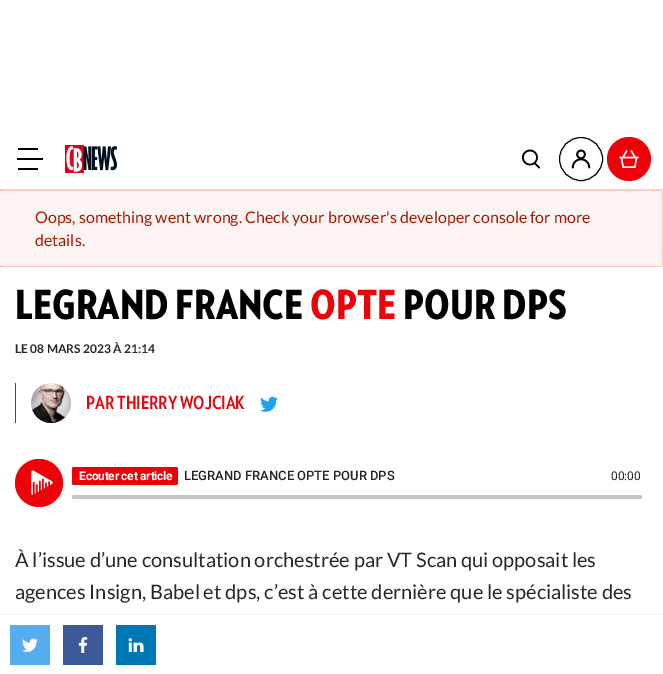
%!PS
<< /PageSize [663 674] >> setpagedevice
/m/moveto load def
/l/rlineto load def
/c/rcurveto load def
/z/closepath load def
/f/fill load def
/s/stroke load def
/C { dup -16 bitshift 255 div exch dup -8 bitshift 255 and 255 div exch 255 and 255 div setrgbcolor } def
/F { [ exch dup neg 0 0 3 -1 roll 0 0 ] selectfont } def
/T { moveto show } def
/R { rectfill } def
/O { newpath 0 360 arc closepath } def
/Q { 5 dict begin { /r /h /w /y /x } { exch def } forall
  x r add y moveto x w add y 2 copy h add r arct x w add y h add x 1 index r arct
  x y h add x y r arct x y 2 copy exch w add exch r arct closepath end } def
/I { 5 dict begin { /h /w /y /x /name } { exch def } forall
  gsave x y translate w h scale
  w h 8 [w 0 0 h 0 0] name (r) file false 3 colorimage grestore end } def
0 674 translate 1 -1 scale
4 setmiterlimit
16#FFFFFF C
0 0 663 674 R
16#DDDDDD C
0 189 663 1 R
16#000000 C
18 148 20 2 R
17 158 26 2 R
18 168 20 2 R
(1.rgb) 65 145 52 28 I
(2.rgb) 521 149 20 20 I
581 159 21.5 O s
(3.rgb) 571 149 20 20 I
16#ED020A C
629 159 22 O f
(4.rgb) 619 150 20 18 I
16#E62600 C
-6 190 m -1 0 -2 1 -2 2 c 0 73 l 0 1 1 2 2 2 c 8 0 l -1 -1 l -1 -1 l 0 -73 l 0 -1 1 -2 2 -2 c z f
16#FCF4F2 C
0 190 663 77 2 Q f
16#F9C9BF C
1 190 661 1 R
662 191 1 75 R
1 266 661 1 R
/Lato-Regular 16 F
16#A51B00 C
(Oops, something went wrong. Check your browser's developer console for more) 35 223 T
(details.) 35 246 T
/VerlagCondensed-Black 40 F
16#000000 C
(LEGRAND FRANCE) 15 319 T
16#ED020A C
(OPTE) 310 319 T
16#000000 C
(POUR DPS) 403 319 T
/Lato-Bold 12 F
16#282828 C
(LE 08 MARS 2023 À 21:14) 15 353 T
16#ED020A C
15 383 1 40 R
(5.rgb) 31 383 40 40 I
/VerlagCondensed-Bold 18 F
(PAR THIERRY WOJCIAK) 86 409 T
(6.rgb) 260 396 18 16 I
39 483 24 O f
(7.rgb) 31 470 22 25 I
72 467 106 18 2 Q f
/Roboto-Bold 12 F
16#FFFFFF C
79 480 m -.25 0 (Ecouter cet article) ashow
/Roboto-Medium 13 F
16#212529 C
(LEGRAND FRANCE OPTE POUR DPS) 184 480 T
/Roboto-Regular 12 F
(00:00) 611 480 T
16#C4C4C4 C
72 495 570 4 2 Q f
/Lato-Regular 20 F
16#282828 C
(À l’issue d’une consultation orchestrée par VT Scan qui opposait les) 15 567 T
(agences Insign, Babel et dps, c’est à cette dernière que le spécialiste des) 15 599 T
16#EFF0F1 C
0 614 663 1 R
16#55ACEF C
10 625 40 40 R
(8.rgb) 22 638 16 14 I
16#3B5998 C
63 625 40 40 R
(9.rgb) 78 637 10 16 I
16#0077B5 C
116 625 40 40 R
(10.rgb) 128 638 16 14 I
showpage
